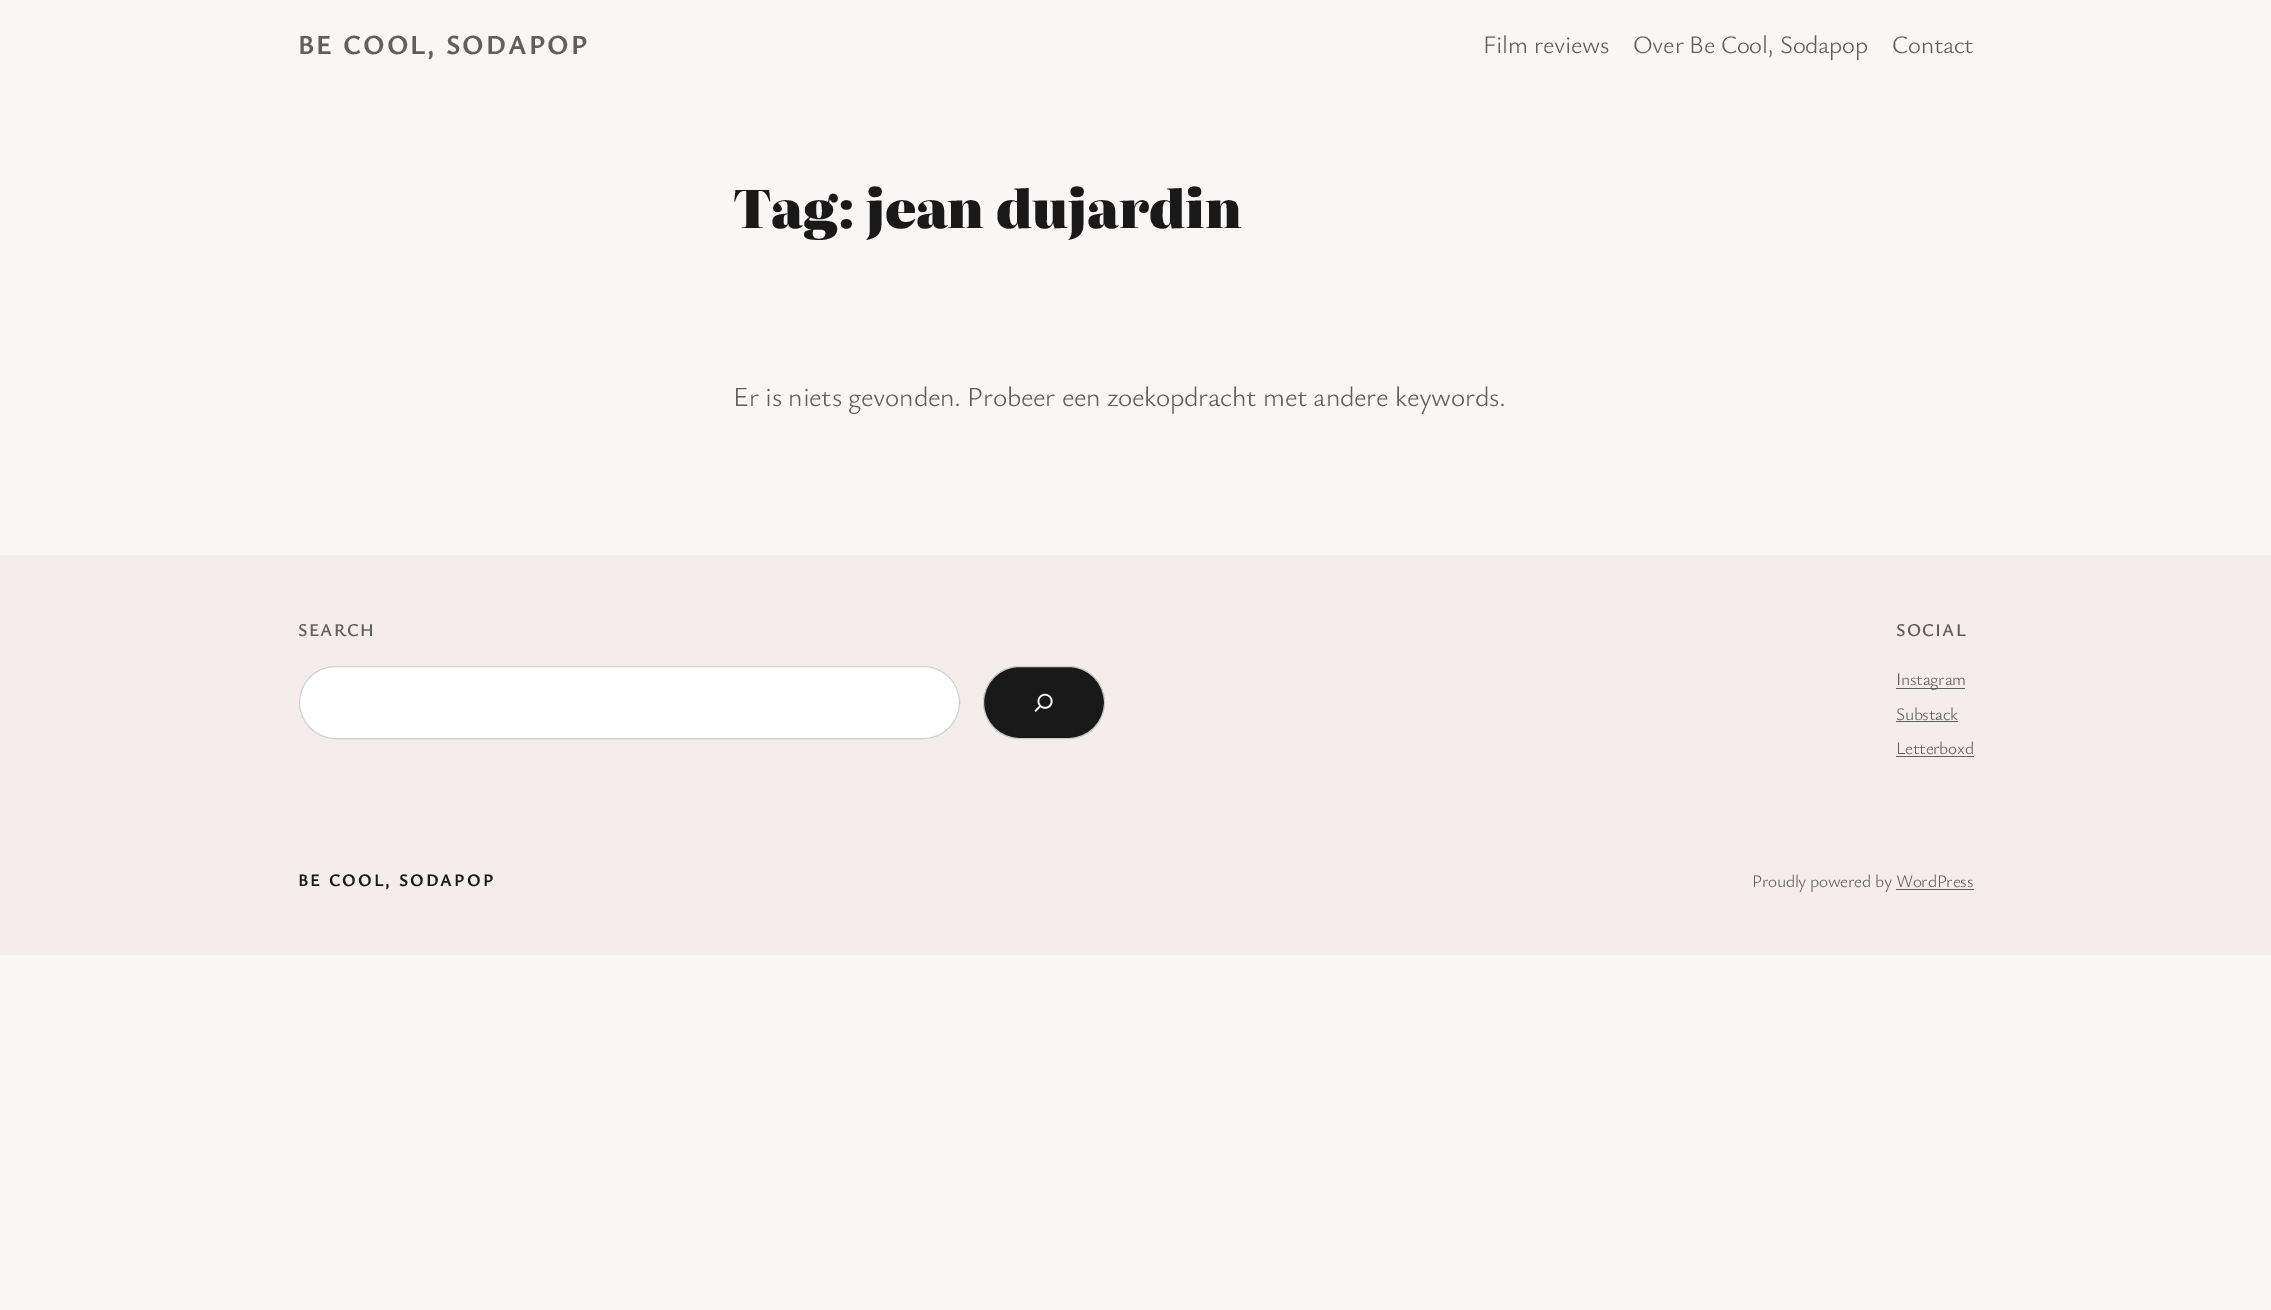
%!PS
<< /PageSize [2271 1310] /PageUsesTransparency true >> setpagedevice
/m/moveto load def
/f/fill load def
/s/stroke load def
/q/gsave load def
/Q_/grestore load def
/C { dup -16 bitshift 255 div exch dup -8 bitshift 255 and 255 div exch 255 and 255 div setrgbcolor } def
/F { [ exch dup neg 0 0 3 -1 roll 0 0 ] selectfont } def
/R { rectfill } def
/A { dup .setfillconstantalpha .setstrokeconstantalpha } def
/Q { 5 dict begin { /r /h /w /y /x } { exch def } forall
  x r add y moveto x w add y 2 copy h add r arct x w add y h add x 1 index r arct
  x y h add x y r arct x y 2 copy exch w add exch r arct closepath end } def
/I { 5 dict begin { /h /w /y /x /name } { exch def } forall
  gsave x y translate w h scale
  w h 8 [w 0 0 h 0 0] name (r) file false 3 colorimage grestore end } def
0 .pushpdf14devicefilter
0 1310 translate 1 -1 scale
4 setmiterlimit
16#F8F7F5 C
0 0 2271 1310 R
/YsabeauOffice-Bold 27.5 F
16#5F5F5F C
298 54 m 2 0 (BE COOL, SODAPOP) ashow
/YsabeauOffice-Light 25 F
1483 53 m -.3 0 (Film reviews) ashow
1633 53 m -.3 0 (Over Be Cool, Sodapop) ashow
1892 53 m -.3 0 (Contact) ashow
/Literata-Black 52 F
16#191919 C
733 228 m -.1 0 (Tag: jean dujardin) ashow
/YsabeauOffice-Light 27.5 F
16#5F5F5F C
733 406 m -.3 0 (Er is niets gevonden. Probeer een zoekopdracht met andere keywords.) ashow
16#F4EDEC C
0 555 2271 400 R
/YsabeauOffice-SemiBold 18 F
16#5F5F5F C
298 636 m 1.25 0 (SEARCH) ashow
16#FFFFFF C
299 666 661 73 36.5 Q f
0.2 A
16#191919 C
299.5 666.5 660 72 36 Q s
1 A
983.5 666.5 121 72 36 Q q f Q_
16#CCCCCC C
s
(1.rgb) 1034 693 19 19 I
16#5F5F5F C
1896 636 m 1.25 0 (SOCIAL) ashow
1896 688 69 1 R
/YsabeauOffice-Light 17.5 F
1896 685 m -.3 0 (Instagram) ashow
1896 720 m -.3 0 (Substack) ashow
1896 721 62 1 R
1896 754 m -.3 0 (Letterboxd) ashow
1896 756 78 1 R
/YsabeauOffice-Bold 17.5 F
16#191919 C
298 886 m 2 0 (BE COOL, SODAPOP) ashow
/YsabeauOffice-Light 17.5 F
16#5F5F5F C
1752 887 m -.3 0 (Proudly powered by WordPress) ashow
1896 889 78 1 R
.poppdf14devicefilter showpage
